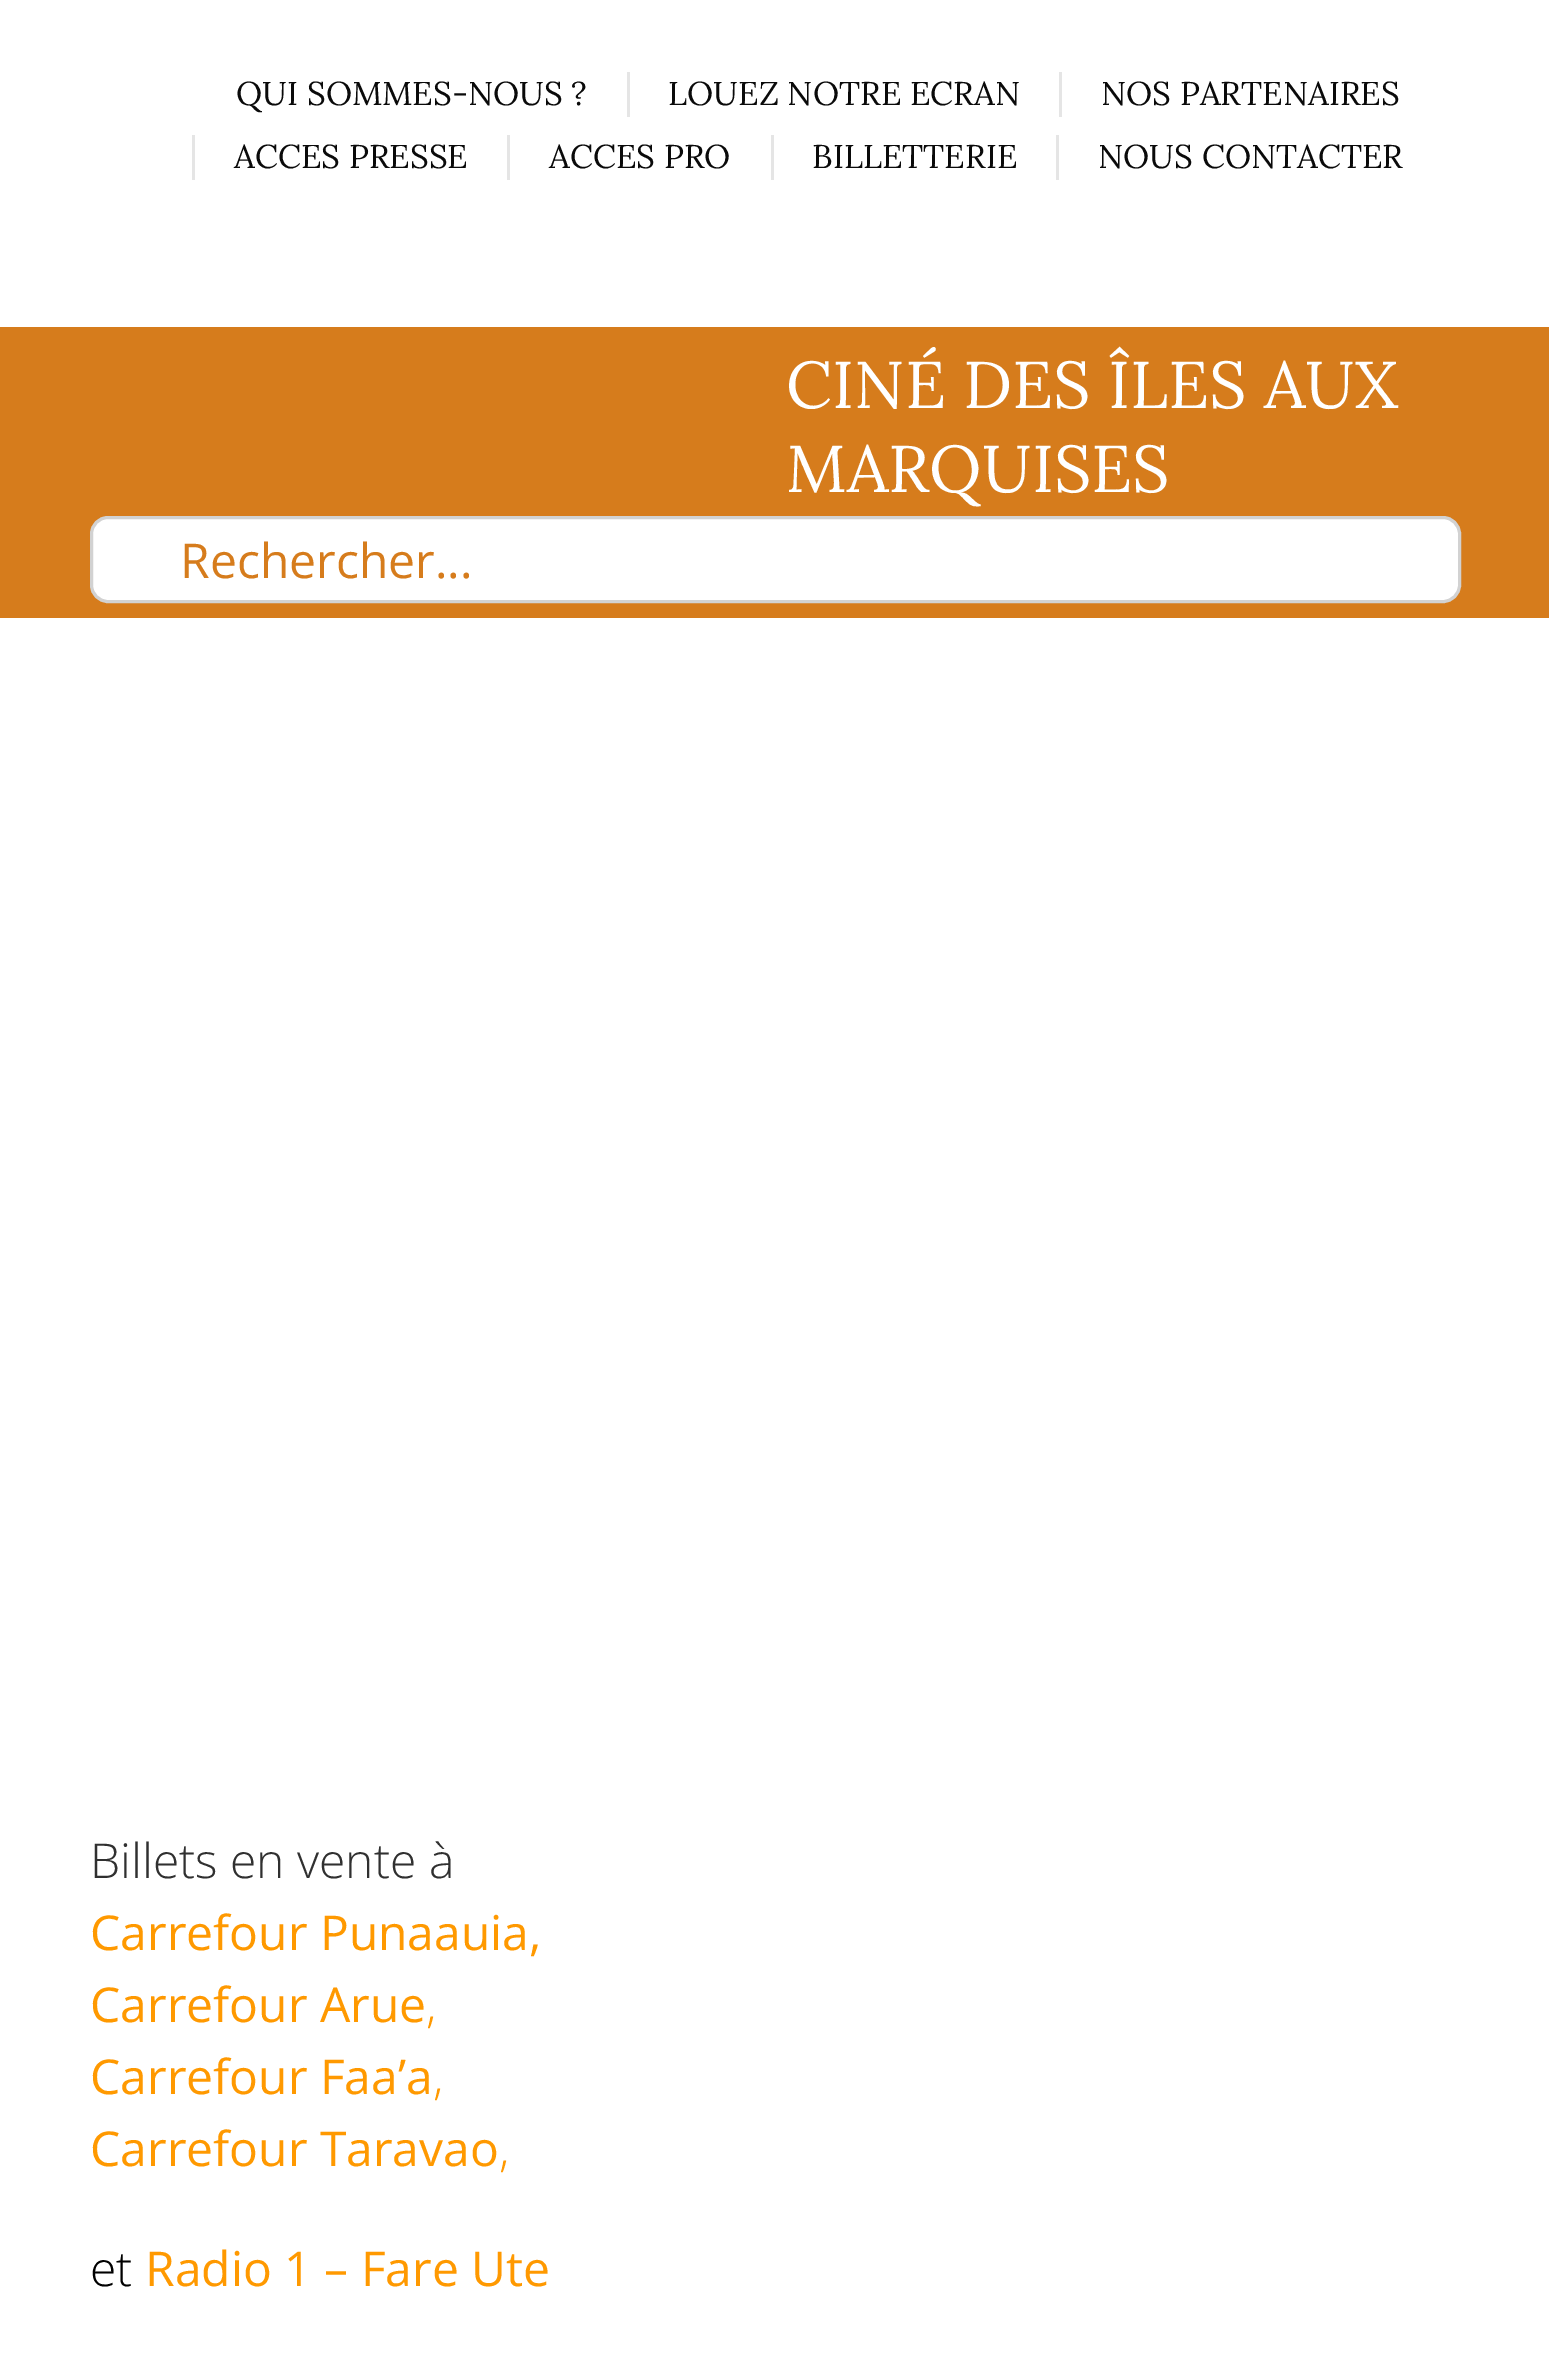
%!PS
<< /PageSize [1549 2376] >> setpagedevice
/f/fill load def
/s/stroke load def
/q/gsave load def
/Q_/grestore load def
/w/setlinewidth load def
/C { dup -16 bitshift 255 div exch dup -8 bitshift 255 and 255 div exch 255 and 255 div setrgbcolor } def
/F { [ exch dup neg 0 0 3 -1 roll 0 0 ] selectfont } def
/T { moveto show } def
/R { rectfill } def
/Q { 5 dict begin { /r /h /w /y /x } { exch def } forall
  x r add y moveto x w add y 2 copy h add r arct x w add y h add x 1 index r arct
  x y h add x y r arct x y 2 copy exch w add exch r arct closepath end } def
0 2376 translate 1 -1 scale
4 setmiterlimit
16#FFFFFF C
0 0 1549 2376 R
/Lora-Regular 33 F
16#0A0A0A C
(QUI SOMMES-NOUS ?) 236 105 T
16#E5E5E5 C
627 72 3 45 R
16#0A0A0A C
(LOUEZ NOTRE ECRAN) 668 105 T
16#E5E5E5 C
1059 72 3 45 R
16#0A0A0A C
(NOS PARTENAIRES) 1101 105 T
16#E5E5E5 C
192 135 3 45 R
16#0A0A0A C
(ACCES PRESSE) 234 168 T
16#E5E5E5 C
507 135 3 45 R
16#0A0A0A C
(ACCES PRO) 549 168 T
16#E5E5E5 C
771 135 3 45 R
16#0A0A0A C
(BILLETTERIE) 812 168 T
16#E5E5E5 C
1056 135 3 45 R
16#0A0A0A C
(NOUS CONTACTER) 1098 168 T
16#D67C1C C
0 327 1549 291 R
/Lora-Regular 66 F
16#FFFFFF C
(CINÉ DES ÎLES AUX) 786 408 T
(MARQUISES) 786 492 T
91.5 517.5 1368 84 16.5 Q q f Q_
16#D2D2D2 C
3 w
s
/OpenSans-Regular 48 F
16#D67C1C C
(Rechercher...) 180 578 T
/OpenSans-Light 48 F
16#303030 C
(Billets en vente à) 90 1878 T
/OpenSans-Regular 48 F
16#FF9900 C
(Carrefour Punaauia,) 90 1950 T
(Carrefour Arue) 90 2022 T
/OpenSans-Light 48 F
(,) 426 2022 T
/OpenSans-Regular 48 F
(Carrefour Faa’a) 90 2094 T
/OpenSans-Light 48 F
(,) 433 2094 T
/OpenSans-Regular 48 F
(Carrefour Taravao) 90 2166 T
/OpenSans-Light 48 F
(,) 499 2166 T
16#000000 C
(et) 90 2286 T
/OpenSans-Regular 48 F
16#FF9900 C
(Radio 1 – Fare Ute) 145 2286 T
showpage
